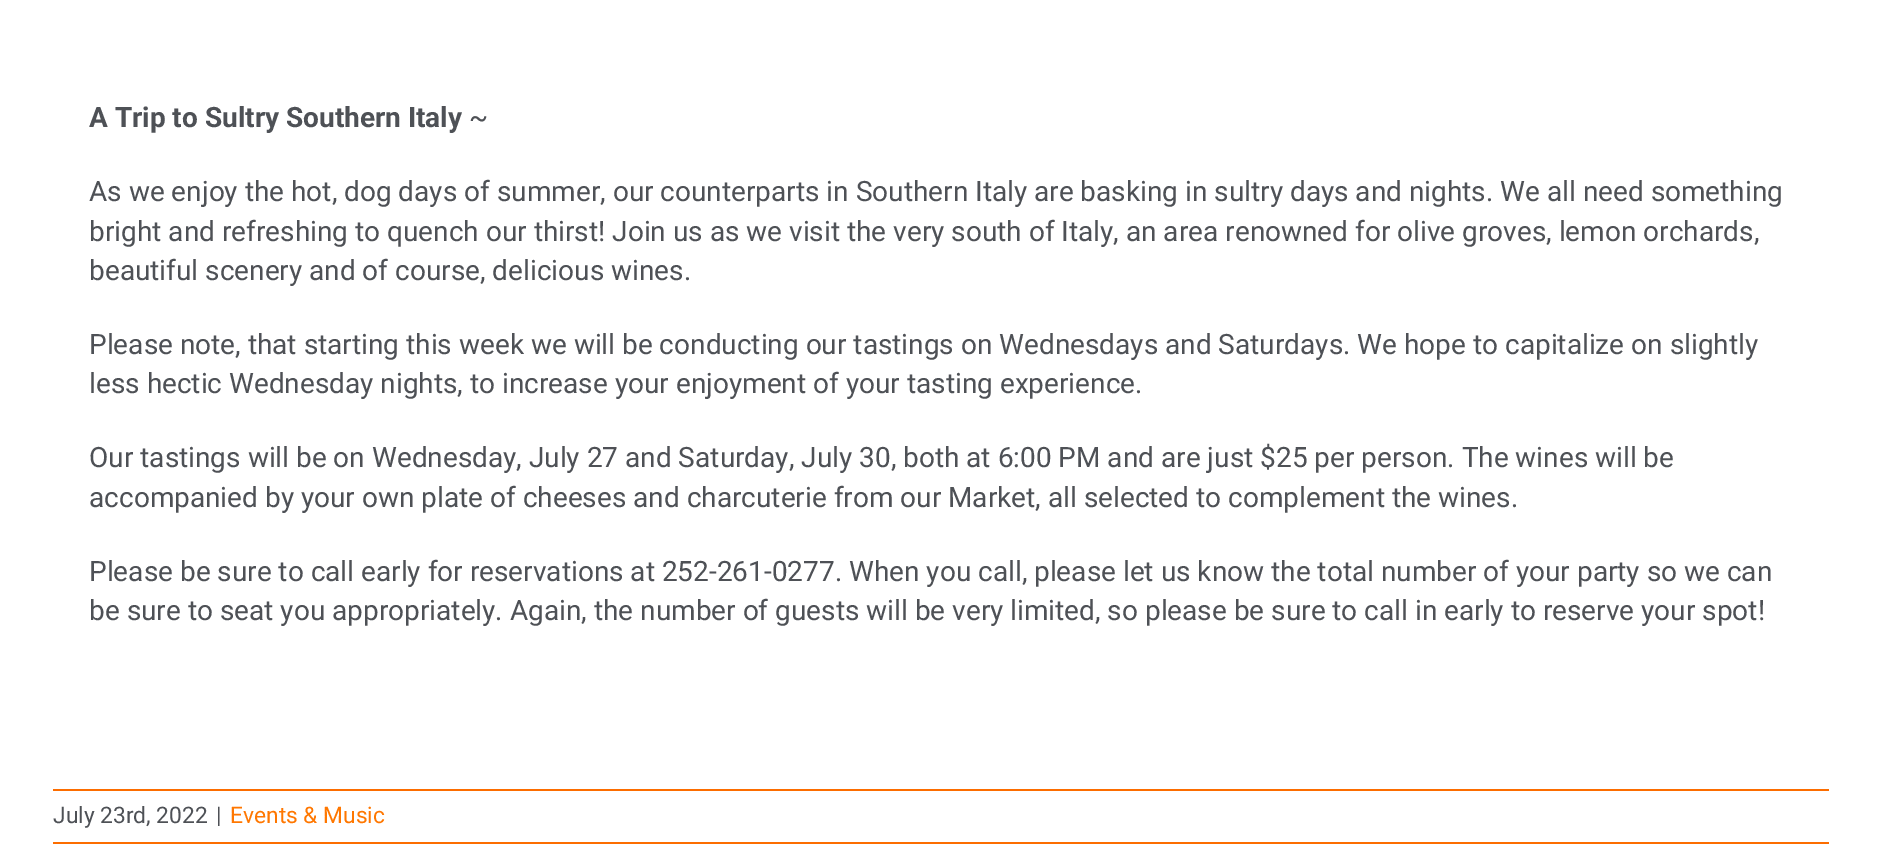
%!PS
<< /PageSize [1881 855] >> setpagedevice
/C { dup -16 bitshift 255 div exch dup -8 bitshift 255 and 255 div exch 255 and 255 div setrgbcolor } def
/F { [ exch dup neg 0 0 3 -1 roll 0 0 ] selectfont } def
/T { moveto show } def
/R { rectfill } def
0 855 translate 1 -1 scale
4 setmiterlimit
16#FFFFFF C
0 0 1881 855 R
/Roboto-Bold 28 F
16#4E5156 C
(A Trip to Sultry Southern Italy) 89 127 T
/Roboto-Regular 28 F
(~) 469 127 T
(As we enjoy the hot, dog days of summer, our counterparts in Southern Italy are basking in sultry days and nights. We all need something) 89 201 T
(bright and refreshing to quench our thirst! Join us as we visit the very south of Italy, an area renowned for olive groves, lemon orchards,) 89 241 T
(beautiful scenery and of course, delicious wines.) 89 280 T
(Please note, that starting this week we will be conducting our tastings on Wednesdays and Saturdays. We hope to capitalize on slightly) 89 354 T
(less hectic Wednesday nights, to increase your enjoyment of your tasting experience.) 89 393 T
(Our tastings will be on Wednesday, July 27 and Saturday, July 30, both at 6:00 PM and are just $25 per person. The wines will be) 89 467 T
(accompanied by your own plate of cheeses and charcuterie from our Market, all selected to complement the wines.) 89 507 T
(Please be sure to call early for reservations at 252-261-0277. When you call, please let us know the total number of your party so we can) 89 581 T
(be sure to seat you appropriately. Again, the number of guests will be very limited, so please be sure to call in early to reserve your spot!) 89 620 T
16#FC6D00 C
53 789 1776 2 R
53 842 1776 2 R
/Roboto-Regular 22.75 F
16#4E5156 C
(July 23rd, 2022) 53 823 T
(|) 216 823 T
16#FF7700 C
(Events & Music) 230 823 T
showpage
